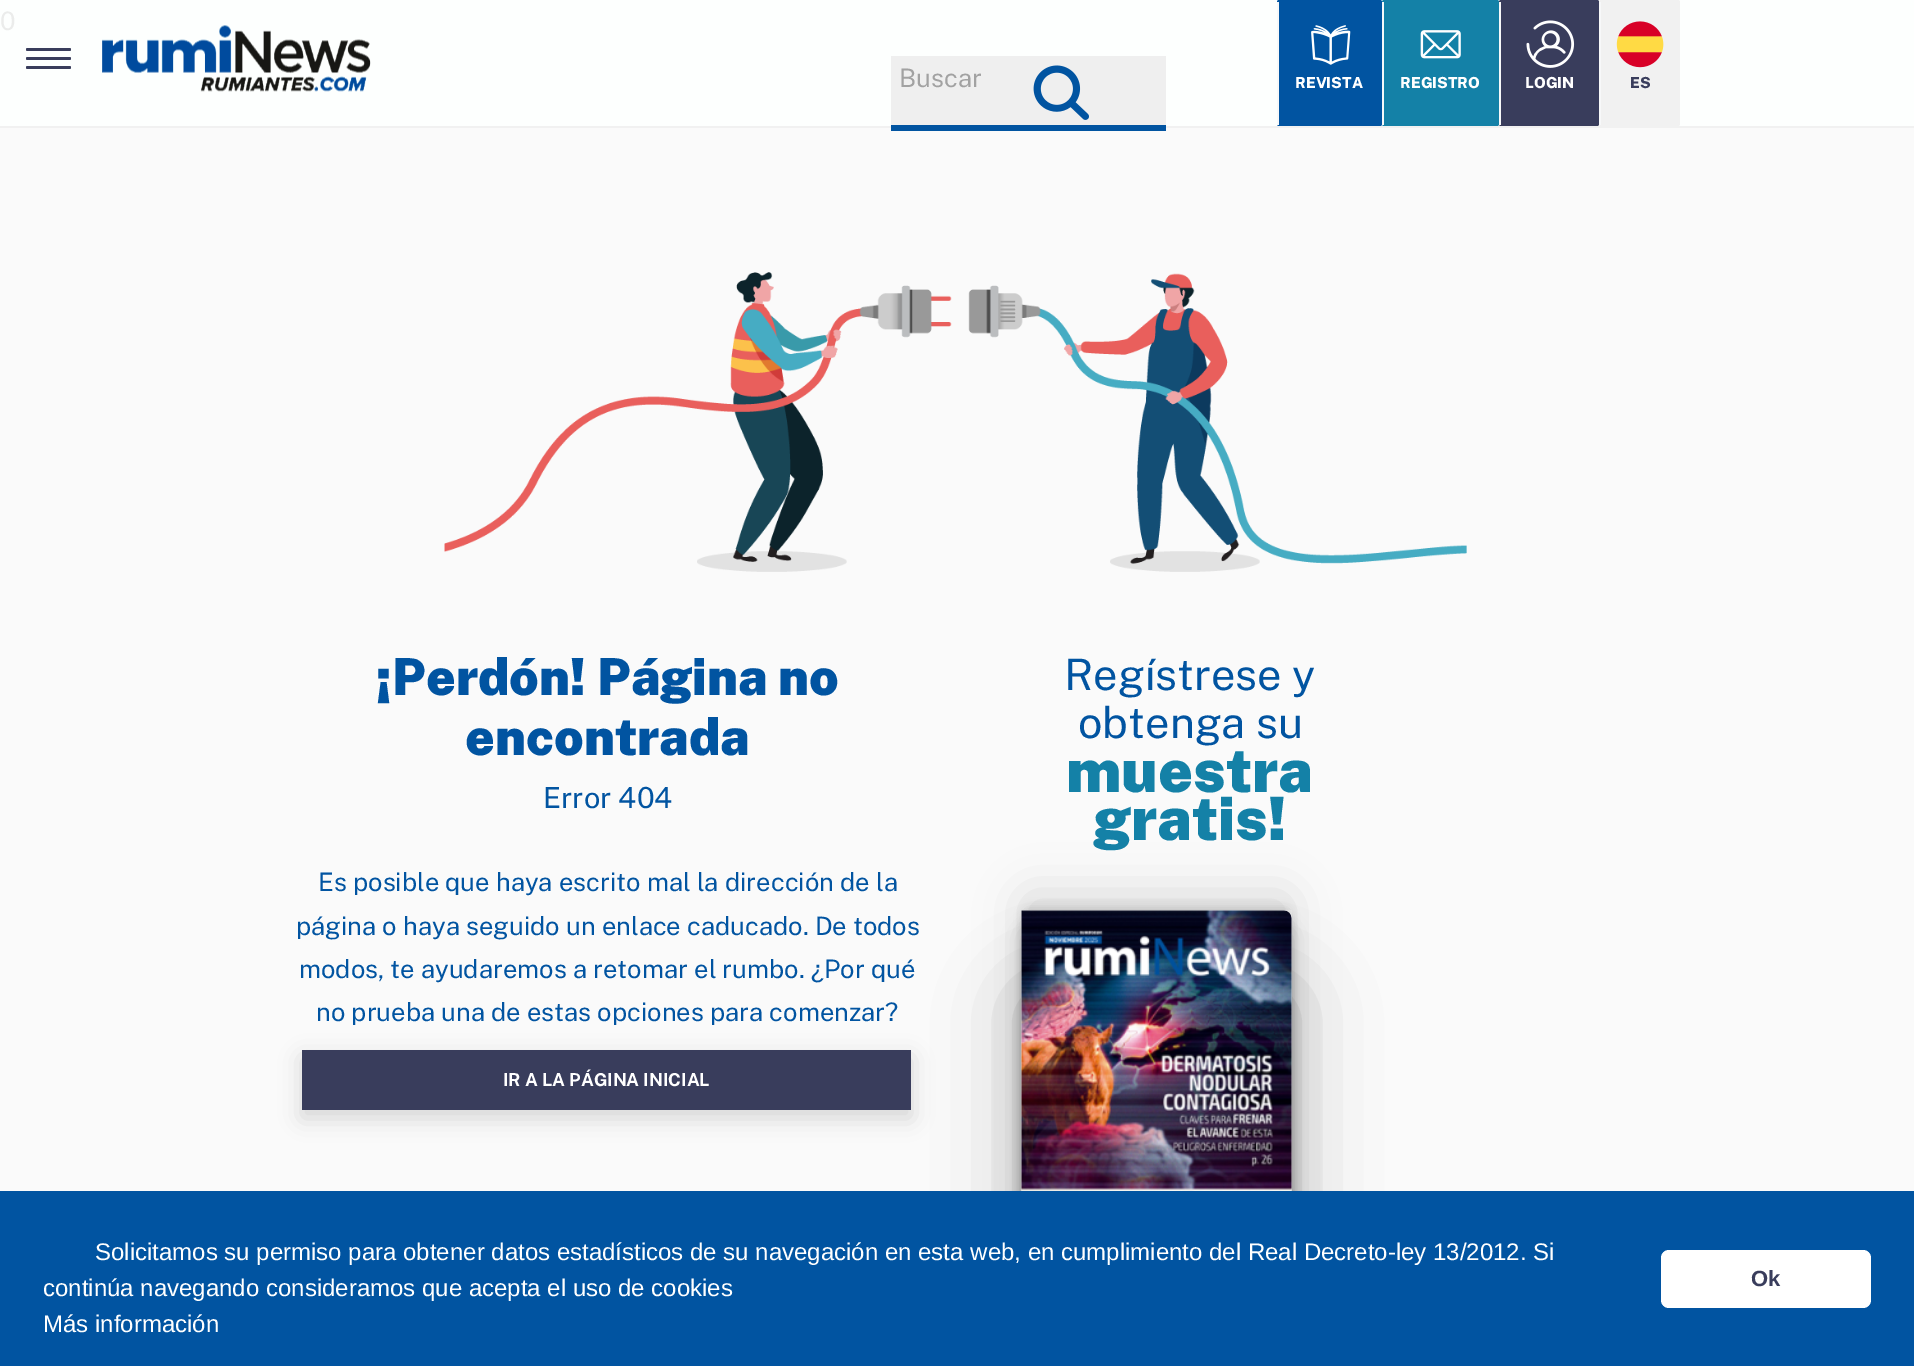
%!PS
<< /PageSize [1914 1366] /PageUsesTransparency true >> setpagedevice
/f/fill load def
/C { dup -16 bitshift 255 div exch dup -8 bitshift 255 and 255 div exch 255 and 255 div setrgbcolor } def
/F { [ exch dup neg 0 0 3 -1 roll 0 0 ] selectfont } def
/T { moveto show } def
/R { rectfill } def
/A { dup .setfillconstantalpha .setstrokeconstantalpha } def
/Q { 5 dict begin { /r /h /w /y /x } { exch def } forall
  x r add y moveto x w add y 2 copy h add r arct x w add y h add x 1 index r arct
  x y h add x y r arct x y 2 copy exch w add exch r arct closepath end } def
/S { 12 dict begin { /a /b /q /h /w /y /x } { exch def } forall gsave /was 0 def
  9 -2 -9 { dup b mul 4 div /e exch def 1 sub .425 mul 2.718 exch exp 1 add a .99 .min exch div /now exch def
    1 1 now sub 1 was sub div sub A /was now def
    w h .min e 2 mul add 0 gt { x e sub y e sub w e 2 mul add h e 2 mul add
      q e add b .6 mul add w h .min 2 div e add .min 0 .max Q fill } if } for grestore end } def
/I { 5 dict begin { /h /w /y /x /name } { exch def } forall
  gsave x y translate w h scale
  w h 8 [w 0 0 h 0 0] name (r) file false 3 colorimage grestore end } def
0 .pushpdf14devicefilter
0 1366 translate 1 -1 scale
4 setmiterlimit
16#FAFAFA C
0 0 1914 1366 R
16#FDFFFE C
0 0 1914 126 R
/PublicSans-Regular 25.5 F
16#EBECEB C
(0) 0 30 T
16#393D5C C
26 57 45 3 1.5 Q f
26 48 45 3 1.5 Q f
26 66 45 3 1.5 Q f
16#F1F1F1 C
0 126 1914 2 R
(1.rgb) 102 25 269 67 I
16#EFEFEF C
891 56 275 69 R
16#0154A1 C
891 125 275 6 R
16#A2A2A2 C
(Buscar) 899 87 T
(2.rgb) 1033 65 56 55 I
16#0154A1 C
1277 0 105 126 2 Q f
16#F7F8F9 C
1277 2 2 123 R
(3.rgb) 1311 25 40 40 I
/PublicSans-ExtraBold 15.25 F
16#FFFFFF C
(REVISTA) 1295 88 T
16#1481A7 C
1382 0 117 126 2 Q f
16#F7F8F9 C
1382 2 2 123 R
(4.rgb) 1420 30 41 29 I
16#FFFFFF C
(REGISTRO) 1400 88 T
16#393D5C C
1499 0 100 126 2 Q f
16#F7F8F9 C
1499 2 2 123 R
(5.rgb) 1526 20 49 48 I
16#FFFFFF C
(LOGIN) 1525 88 T
16#F1F1F1 C
1599 0 81 126 2 Q f
16#F7F8F9 C
1599 2 2 123 R
(6.rgb) 1616 21 48 47 I
16#393D5C C
(ES) 1630 88 T
(7.rgb) 444 272 1023 300 I
/PublicSans-Black 51 F
16#0154A1 C
(¡Perdón! Página no) 376 695 T
(encontrada) 465 755 T
/PublicSans-Regular 29 F
(Error 404) 543 808 T
/PublicSans-Regular 25.5 F
(Es posible que haya escrito mal la dirección de la) 318 891 T
(página o haya seguido un enlace caducado. De todos) 296 935 T
(modos, te ayudaremos a retomar el rumbo. ¿Por qué) 299 978 T
(no prueba una de estas opciones para comenzar?) 316 1021 T
16#000000 C
302 1058 609 60 0 11 .15 S
16#393D5C C
302 1050 609 60 R
/PublicSans-Bold 17.8 F
16#FFFFFF C
(IR A LA PÁGINA INICIAL) 503 1086 T
/PublicSans-Regular 43.25 F
16#0154A1 C
(Regístrese y) 1064 690 T
(obtenga su) 1078 738 T
/PublicSans-Black 60 F
16#1481A7 C
(muestra) 1066 792 T
(gratis!) 1093 840 T
16#000000 C
1022 906 270 383 8 4 .09 S
1022 929 270 382 8 10 .17 S
1022 917 270 382 8 4.5 .12 S
1022 893 270 382 8 22.5 .12 S
1022 992 270 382 8 41 .25 S
(8.rgb) 1021 910 271 281 I
16#0154A1 C
0 1191 1914 175 R
/LiberationSans-Regular 24 F
16#FFFFFF C
(Solicitamos su permiso para obtener datos estadísticos de su navegación en esta web, en cumplimiento del Real Decreto-ley 13/2012. Si) 95 1260 T
(continúa navegando consideramos que acepta el uso de cookies) 43 1296 T
(Más información) 43 1332 T
1661 1250 210 58 8 Q f
/LiberationSans-Bold 22 F
16#393D5C C
(Ok) 1751 1286 T
.poppdf14devicefilter showpage
